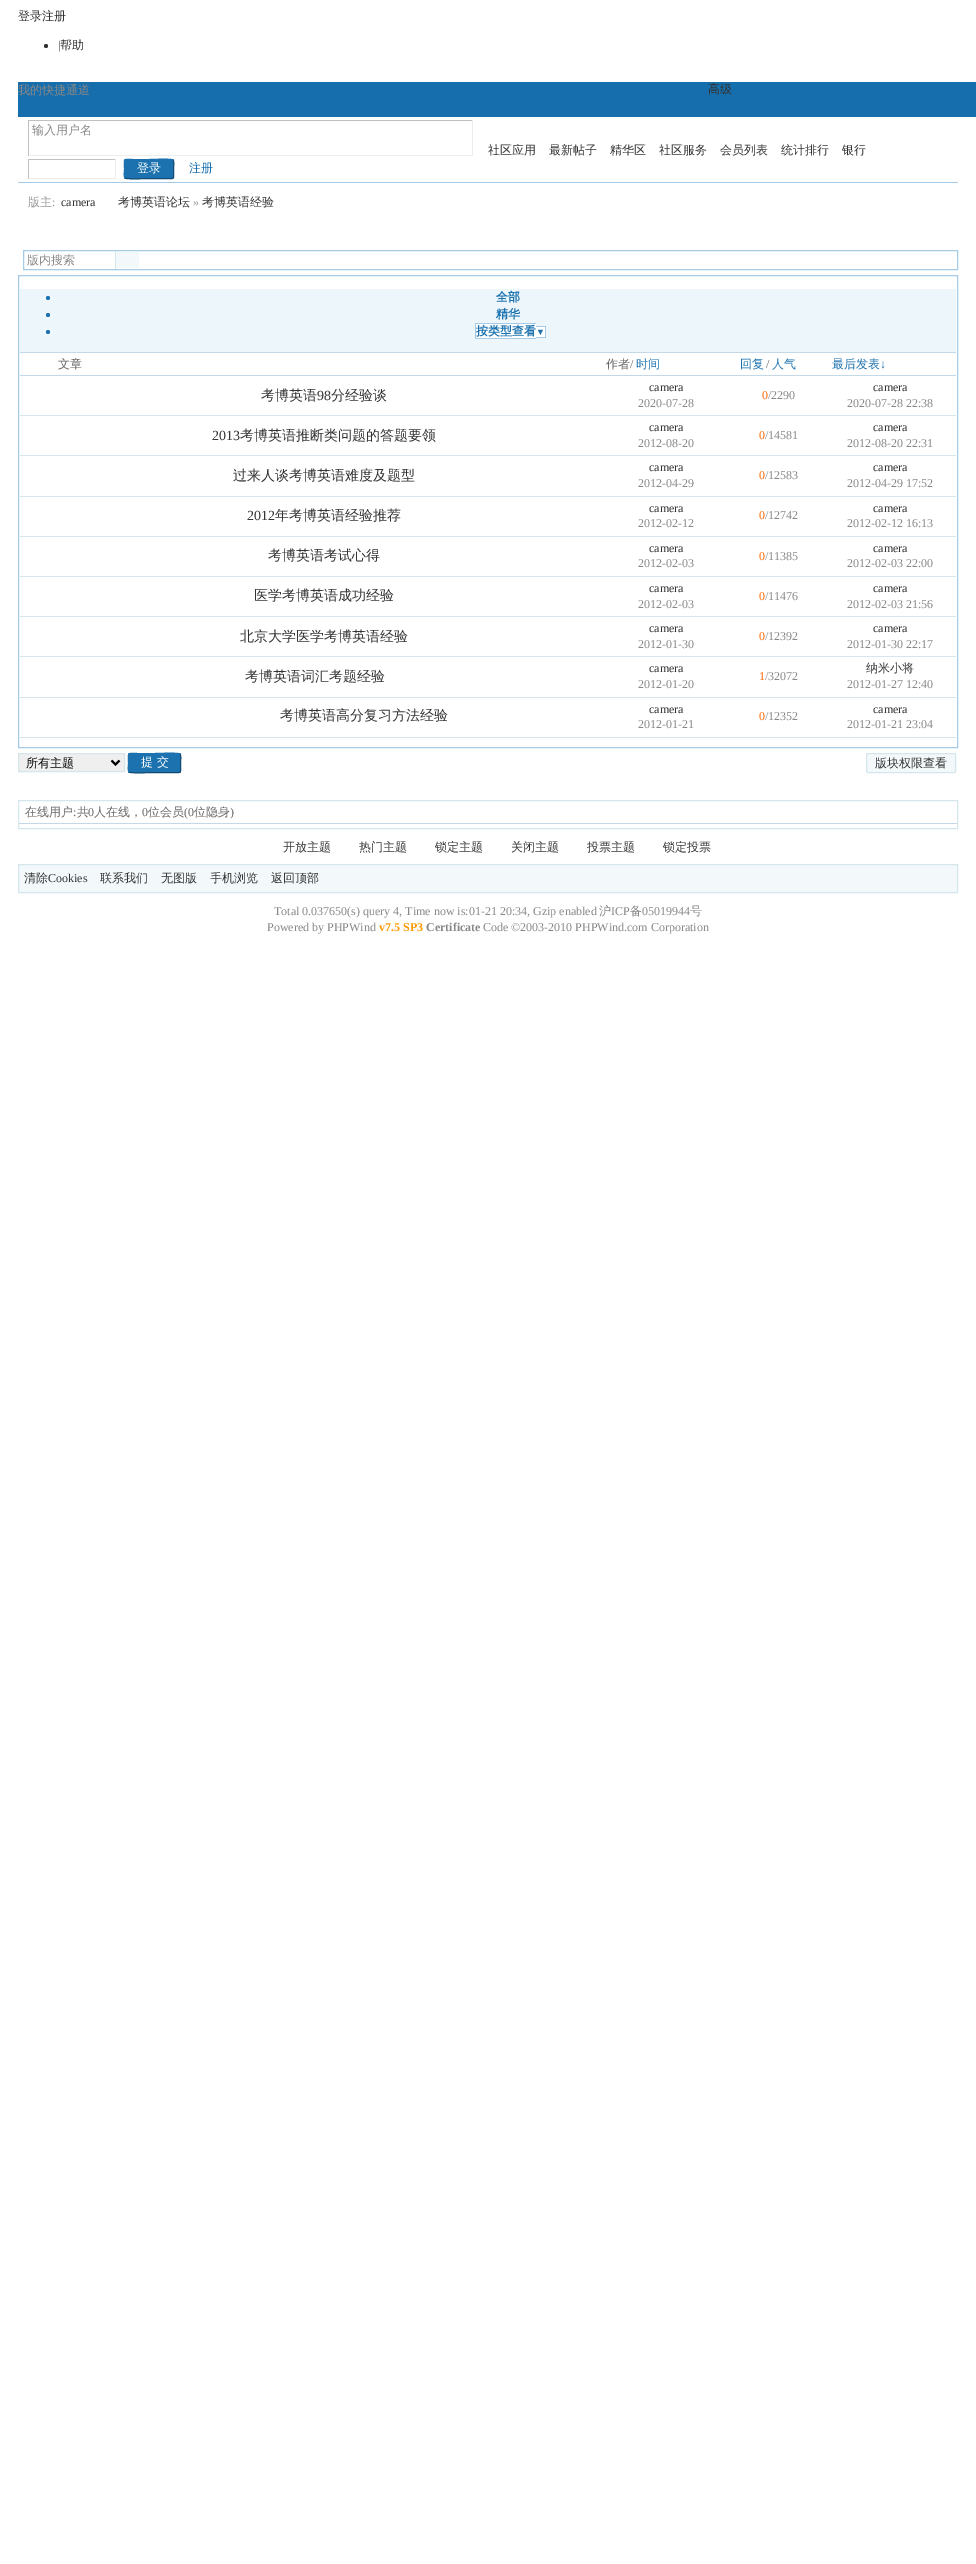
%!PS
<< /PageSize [976 2564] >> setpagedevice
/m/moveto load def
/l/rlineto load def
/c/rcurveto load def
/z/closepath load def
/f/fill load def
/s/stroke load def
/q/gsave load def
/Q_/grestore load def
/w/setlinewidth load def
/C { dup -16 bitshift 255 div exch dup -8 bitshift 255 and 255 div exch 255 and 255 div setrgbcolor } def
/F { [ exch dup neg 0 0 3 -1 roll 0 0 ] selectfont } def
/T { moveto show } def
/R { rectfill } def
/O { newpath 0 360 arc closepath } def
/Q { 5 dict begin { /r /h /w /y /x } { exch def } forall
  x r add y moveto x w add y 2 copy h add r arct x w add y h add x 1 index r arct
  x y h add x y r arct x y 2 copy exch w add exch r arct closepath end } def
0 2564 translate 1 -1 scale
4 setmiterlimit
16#FFFFFF C
0 0 976 2564 R
/WenQuanYiZenHei-Medium 12 F
16#333333 C
(登录注册) 18 20 T
46 46 2 O f
/LiberationSerif-Regular 12 F
(|) 58 49 T
/WenQuanYiZenHei-Medium 12 F
(帮助) 60 49 T
16#176EAC C
18 82 958 35 R
16#888888 C
(我的快捷通道) 18 94 T
16#333333 C
(高级) 708 93 T
16#C0C0C0 C
28 120 445 1 R
16#EDEDED C
472 120 1 36 R
28 155 445 1 R
16#C0C0C0 C
28 120 1 36 R
16#888888 C
(输入用户名) 32 134 T
16#C0C0C0 C
28 159 88 1 R
16#EDEDED C
115 159 1 20 R
28 178 88 1 R
16#C0C0C0 C
28 159 1 20 R
16#1B72AF C
124 159 50 20 2 Q f
16#124C75 C
173 160 m 1.5 1.5 .5 7 .5 9 c 0 11.5 2 9.5 -9 9.5 c -15.5 0 l -3 0 -23 1 -24 -.5 c s
16#1B72AF C
125 178 m -1.5 -1.5 -.5 -7 -.5 -9 c 0 -11.5 -2 -9.5 9 -9.5 c 15.5 0 l 3 0 23 -1 24 .5 c s
16#FFFFFF C
(登录) 137 172 T
16#1B72AF C
(注册) 189 172 T
16#333333 C
(社区应用) 488 154 T
(最新帖子) 549 154 T
(精华区) 610 154 T
(社区服务) 659 154 T
(会员列表) 720 154 T
(统计排行) 781 154 T
(银行) 842 154 T
16#A6CBE7 C
18 182 940 1 R
16#999999 C
(版主) 28 206 T
/LiberationSerif-Regular 12 F
(:) 52 206 T
16#333333 C
(camera) 61 206 T
/WenQuanYiZenHei-Medium 12 F
(考博英语论坛) 118 206 T
/LiberationSerif-Regular 12 F
16#999999 C
(») 193 206 T
/WenQuanYiZenHei-Medium 12 F
16#333333 C
(考博英语经验) 202 206 T
16#A6CBE7 C
23.5 250.5 934 19 rectstroke
16#888888 C
(版内搜索) 27 264 T
16#F3F9FB C
116 252 23 16 R
16#D5E6ED C
115 251 1 18 R
16#A6CBE7 C
18.5 275.5 939 472 rectstroke
16#ECF6FB C
20 289 936 63 R
16#C5D8E8 C
20 352 936 1 R
16#1B72AF C
48 298 2 O f
/WenQuanYiZenHei-Bold 12 F
(全部) 496 301 T
48 315 2 O f
(精华) 496 318 T
48 332 2 O f
16#FFFFFF C
476 324 60 14 R
16#1B72AF C
(按类型查看) 476 335 T
16#A6CBE7 C
475 323 61 1 R
475 338 61 1 R
475 323 1 16 R
536 326 10 1 R
16#FFFFFF C
536 327 9 10 R
/LiberationSerif-Bold 9 F
16#1B72AF C
(▼) 536 335 T
16#A6CBE7 C
545 326 1 12 R
536 337 10 1 R
/WenQuanYiZenHei-Medium 12 F
16#666666 C
(文章) 58 368 T
(作者) 606 368 T
/LiberationSerif-Regular 12 F
(/) 630 368 T
/WenQuanYiZenHei-Medium 12 F
16#1B72AF C
(时间) 636 368 T
(回复) 740 368 T
/LiberationSerif-Regular 12 F
16#666666 C
(/) 766 368 T
/WenQuanYiZenHei-Medium 12 F
16#1B72AF C
(人气) 772 368 T
(最后发表) 832 368 T
/LiberationSerif-Regular 12 F
(↓) 880 368 T
16#C5D8E8 C
20 375 936 1 R
/WenQuanYiZenHei-Medium 14 F
16#333333 C
(考博英语) 261 400 T
/LiberationSerif-Regular 14 F
(98) 317 400 T
/WenQuanYiZenHei-Medium 14 F
(分经验谈) 331 400 T
/LiberationSerif-Regular 12 F
(camera) 649 391 T
16#888888 C
(2020-07-28) 638 407 T
16#FF6600 C
(0) 762 399 T
16#888888 C
(/2290) 768 399 T
16#333333 C
(camera) 873 391 T
16#888888 C
(2020-07-28 22:38) 847 407 T
16#D5E6ED C
20 415 936 1 R
/LiberationSerif-Regular 14 F
16#333333 C
(2013) 212 440 T
/WenQuanYiZenHei-Medium 14 F
(考博英语推断类问题的答题要领) 240 440 T
/LiberationSerif-Regular 12 F
(camera) 649 431 T
16#888888 C
(2012-08-20) 638 447 T
16#FF6600 C
(0) 759 439 T
16#888888 C
(/14581) 765 439 T
16#333333 C
(camera) 873 431 T
16#888888 C
(2012-08-20 22:31) 847 447 T
16#D5E6ED C
20 455 936 1 R
/WenQuanYiZenHei-Medium 14 F
16#333333 C
(过来人谈考博英语难度及题型) 233 480 T
/LiberationSerif-Regular 12 F
(camera) 649 471 T
16#888888 C
(2012-04-29) 638 487 T
16#FF6600 C
(0) 759 479 T
16#888888 C
(/12583) 765 479 T
16#333333 C
(camera) 873 471 T
16#888888 C
(2012-04-29 17:52) 847 487 T
16#D5E6ED C
20 496 936 1 R
/LiberationSerif-Regular 14 F
16#333333 C
(2012) 247 520 T
/WenQuanYiZenHei-Medium 14 F
(年考博英语经验推荐) 275 520 T
/LiberationSerif-Regular 12 F
(camera) 649 512 T
16#888888 C
(2012-02-12) 638 527 T
16#FF6600 C
(0) 759 519 T
16#888888 C
(/12742) 765 519 T
16#333333 C
(camera) 873 512 T
16#888888 C
(2012-02-12 16:13) 847 527 T
16#D5E6ED C
20 536 936 1 R
/WenQuanYiZenHei-Medium 14 F
16#333333 C
(考博英语考试心得) 268 560 T
/LiberationSerif-Regular 12 F
(camera) 649 552 T
16#888888 C
(2012-02-03) 638 567 T
16#FF6600 C
(0) 759 560 T
16#888888 C
(/11385) 765 560 T
16#333333 C
(camera) 873 552 T
16#888888 C
(2012-02-03 22:00) 847 567 T
16#D5E6ED C
20 576 936 1 R
/WenQuanYiZenHei-Medium 14 F
16#333333 C
(医学考博英语成功经验) 254 600 T
/LiberationSerif-Regular 12 F
(camera) 649 592 T
16#888888 C
(2012-02-03) 638 608 T
16#FF6600 C
(0) 759 600 T
16#888888 C
(/11476) 765 600 T
16#333333 C
(camera) 873 592 T
16#888888 C
(2012-02-03 21:56) 847 608 T
16#D5E6ED C
20 616 936 1 R
/WenQuanYiZenHei-Medium 14 F
16#333333 C
(北京大学医学考博英语经验) 240 641 T
/LiberationSerif-Regular 12 F
(camera) 649 632 T
16#888888 C
(2012-01-30) 638 648 T
16#FF6600 C
(0) 759 640 T
16#888888 C
(/12392) 765 640 T
16#333333 C
(camera) 873 632 T
16#888888 C
(2012-01-30 22:17) 847 648 T
16#D5E6ED C
20 656 936 1 R
/WenQuanYiZenHei-Medium 14 F
16#333333 C
(考博英语词汇考题经验) 245 681 T
/LiberationSerif-Regular 12 F
(camera) 649 672 T
16#888888 C
(2012-01-20) 638 688 T
16#FF6600 C
(1) 759 680 T
16#888888 C
(/32072) 765 680 T
/WenQuanYiZenHei-Medium 12 F
16#333333 C
(纳米小将) 866 672 T
/LiberationSerif-Regular 12 F
16#888888 C
(2012-01-27 12:40) 847 688 T
16#D5E6ED C
20 697 936 1 R
/WenQuanYiZenHei-Medium 14 F
16#333333 C
(考博英语高分复习方法经验) 280 720 T
/LiberationSerif-Regular 12 F
(camera) 649 713 T
16#888888 C
(2012-01-21) 638 728 T
16#FF6600 C
(0) 759 720 T
16#888888 C
(/12352) 765 720 T
16#333333 C
(camera) 873 713 T
16#888888 C
(2012-01-21 23:04) 847 728 T
16#D5E6ED C
20 737 936 1 R
16#EFEFEF C
18.5 753.5 m 106 0 l 0 18 l -106 0 l z q f Q_
16#D5E6ED C
s
16#000000 C
2 w
111.5 760.5 m 4 4 l 4 -4 l s
/WenQuanYiZenHei-Medium 12 F
(所有主题) 26 767 T
16#1B72AF C
128 753 53 20 2 Q f
16#124C75 C
1 w
180 754 m 1.5 1.5 .5 7 .5 9 c 0 11.5 2 9.5 -9.5 9.5 c -16.5 0 l -3 0 -24.5 1 -25.5 -.5 c s
16#1B72AF C
129 772 m -1.5 -1.5 -.5 -7 -.5 -9 c 0 -11.5 -2 -9.5 9.5 -9.5 c 16.5 0 l 3 0 24.5 -1 25.5 .5 c s
16#FFFFFF C
(提 交) 141 766 T
16#F3F9FB C
866.5 753.5 89 19 1.5 Q q f Q_
16#D5E6ED C
s
16#333333 C
(版块权限查看) 875 767 T
16#D5E6ED C
18.5 800.5 939 28 rectstroke
16#C5D8E8 C
19 823 938 1 R
16#666666 C
(在线用户 共) 25 816 T
/LiberationSerif-Regular 12 F
(0) 88 816 T
/WenQuanYiZenHei-Medium 12 F
(人在线，) 94 816 T
/LiberationSerif-Regular 12 F
(0) 142 816 T
/WenQuanYiZenHei-Medium 12 F
(位会员) 148 816 T
/LiberationSerif-Regular 12 F
(\(0) 184 816 T
/WenQuanYiZenHei-Medium 12 F
(位隐身) 194 816 T
/LiberationSerif-Regular 12 F
(\)) 230 816 T
(:) 73 816 T
/WenQuanYiZenHei-Medium 12 F
16#333333 C
(开放主题) 283 851 T
(热门主题) 359 851 T
(锁定主题) 435 851 T
(关闭主题) 511 851 T
(投票主题) 587 851 T
(锁定投票) 663 851 T
16#F3F9FB C
18.5 864.5 m 939 0 l 0 28 l -939 0 l z q f Q_
16#D5E6ED C
s
16#333333 C
(清除) 24 882 T
/LiberationSerif-Regular 12 F
(Cookies) 48 882 T
/WenQuanYiZenHei-Medium 12 F
(联系我们) 100 882 T
(无图版) 161 882 T
(手机浏览) 210 882 T
(返回顶部) 271 882 T
/LiberationSerif-Regular 12 F
16#888888 C
(Total 0.037650\(s\) query 4, Time now is:01-21 20:34, Gzip enabled) 274 915 T
/WenQuanYiZenHei-Medium 12 F
(沪) 599 915 T
/LiberationSerif-Regular 12 F
(ICP) 611 915 T
/WenQuanYiZenHei-Medium 12 F
(备) 630 915 T
/LiberationSerif-Regular 12 F
(05019944) 642 915 T
/WenQuanYiZenHei-Medium 12 F
(号) 690 915 T
/LiberationSerif-Regular 12 F
(Powered by PHPWind) 267 931 T
/LiberationSerif-Bold 12 F
16#FF9900 C
(v7.5 SP3) 379 931 T
16#888888 C
(Certificate) 426 931 T
/LiberationSerif-Regular 12 F
(Code ©2003-2010 PHPWind.com Corporation) 483 931 T
showpage
